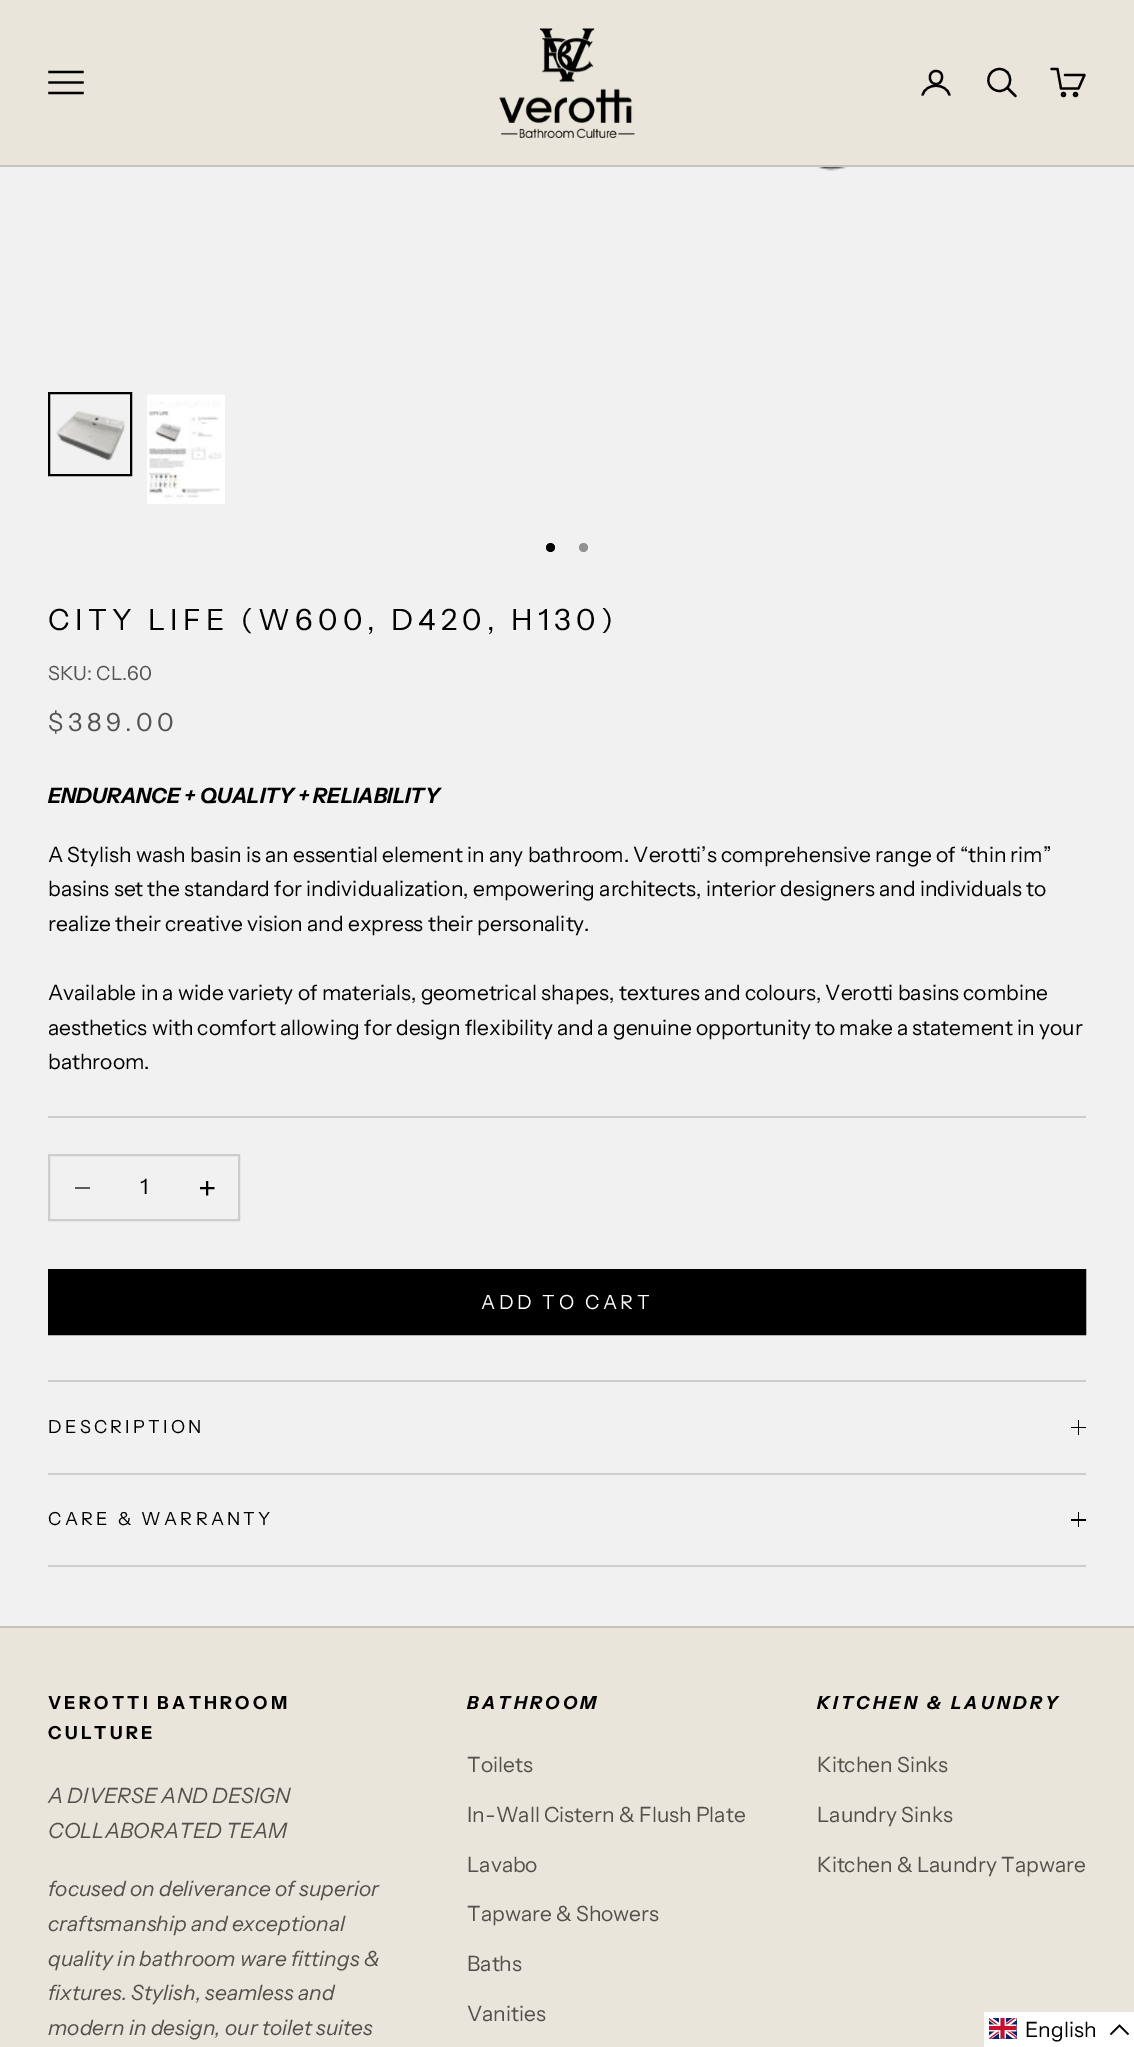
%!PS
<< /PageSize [1134 2047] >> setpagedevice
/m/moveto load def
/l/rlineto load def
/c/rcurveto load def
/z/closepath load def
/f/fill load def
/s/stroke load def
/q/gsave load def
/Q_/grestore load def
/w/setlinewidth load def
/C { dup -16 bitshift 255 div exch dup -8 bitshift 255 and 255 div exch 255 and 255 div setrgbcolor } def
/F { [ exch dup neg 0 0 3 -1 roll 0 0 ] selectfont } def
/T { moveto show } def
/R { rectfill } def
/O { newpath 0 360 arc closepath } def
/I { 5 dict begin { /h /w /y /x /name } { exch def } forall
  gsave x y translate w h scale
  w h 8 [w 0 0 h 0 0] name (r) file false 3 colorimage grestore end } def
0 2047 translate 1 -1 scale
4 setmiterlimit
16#E9E5DA C
0 0 1134 2047 R
16#C6C3B9 C
0 165 1134 2 R
16#000000 C
2.2 w
2 setlinecap
49.5 93 m 33 0 l 49.5 82.5 m 33 0 l 49.5 72 m 33 0 l s
(1.rgb) 499 28 136 110 I
1 setlinecap
1 setlinejoin
942 77.5 m -.5 10 -13.5 8 -12 -1.5 c 1 -7.5 13 -6.5 12 1.5 c z s
0 setlinecap
0 setlinejoin
922.5 95.5 m 2.5 -13 24.5 -13 27 0 c s
999.5 69 m -11.5 0 -15.5 15 -5.5 20.5 c 1.5 1 3.5 1.5 5.5 1.5 c 14.5 -.5 14 -22 0 -22 c z s
1 setlinecap
1008 88.5 m 7.5 7.5 l s
1 setlinejoin
1065 75 m 19.5 0 l -6 13.5 l -17.5 0 l -3.5 -19.5 l -6 0 l s
0 setlinecap
0 setlinejoin
1063.5 94.5 1.5 O s
1075.5 94.5 1.5 O s
16#F1F1F1 C
0 167 1134 1459 R
(2.rgb) 818 167 29 4 I
16#000000 C
2 w
49 393 82 82 rectstroke
(3.rgb) 56 411 69 50 I
(4.rgb) 147 394 78 110 I
550.5 547.5 4.5 O f
16#919191 C
583.5 547.5 4.5 O f
/InstrumentSans-Regular 29.25 F
16#000000 C
48 630 m 5.25 0 (CITY LIFE \(W600, D420, H130\)) ashow
/InstrumentSans-Regular 19.5 F
16#545454 C
(SKU: CL.60) 48 680 T
/InstrumentSans-Regular 25 F
48 731 m 4.5 0 ($389.00) ashow
/InstrumentSans-BoldItalic 21 F
16#000000 C
(ENDURANCE + QUALITY + RELIABILITY) 48 803 T
/InstrumentSans-Regular 21 F
(A Stylish wash basin is an essential element in any bathroom. Verotti’s comprehensive range of “thin rim”) 48 862 T
(basins set the standard for individualization, empowering architects, interior designers and individuals to) 48 896 T
(realize their creative vision and express their personality.) 48 931 T
(Available in a wide variety of materials, geometrical shapes, textures and colours, Verotti basins combine) 48 1000 T
(aesthetics with comfort allowing for design flexibility and a genuine opportunity to make a statement in your) 48 1035 T
(bathroom.) 48 1069 T
16#CDCDCD C
48 1116 1038 2 R
49 1155 190 65 rectstroke
16#5C5C5C C
75 1187 15 2 R
16#000000 C
(1) 140 1194 T
q
200 1181 15 15 rectclip
1.9 w
207 1180.5 m 0 15 l 199.5 1188 m 15 0 l s
Q_
49 1270 m 1036 0 l 0 64 l -1036 0 l z q f Q_
s
/InstrumentSans-Regular 19.5 F
16#FFFFFF C
481 1309 m 3.5 0 (ADD TO CART) ashow
16#CDCDCD C
48 1380 1038 2 R
48 1473 1038 2 R
/InstrumentSans-Regular 18 F
16#000000 C
48 1433 m 3.25 0 (DESCRIPTION) ashow
1078 1420 1 15 R
1071 1427 15 1 R
16#CDCDCD C
48 1565 1038 2 R
16#000000 C
48 1525 m 3.25 0 (CARE & WARRANTY) ashow
1078 1512 1 15 R
1071 1519 15 2 R
16#C6C3B9 C
0 1626 1134 2 R
/InstrumentSans-Bold 18 F
16#000000 C
48 1709 m 3.25 0 (VEROTTI BATHROOM) ashow
48 1739 m 3.25 0 (CULTURE) ashow
/InstrumentSans-Italic 21 F
16#52504C C
(A DIVERSE AND DESIGN) 48 1803 T
(COLLABORATED TEAM) 48 1838 T
(focused on deliverance of superior) 48 1896 T
(craftsmanship and exceptional) 48 1931 T
(quality in bathroom ware fittings &) 48 1966 T
(fixtures. Stylish, seamless and) 48 2000 T
(modern in design, our toilet suites) 48 2035 T
/InstrumentSans-BoldItalic 18 F
16#000000 C
467 1709 m 3.25 0 (BATHROOM) ashow
/InstrumentSans-Regular 21 F
16#52504C C
(Toilets) 467 1772 T
(In-Wall Cistern & Flush Plate) 467 1822 T
(Lavabo) 467 1872 T
(Tapware & Showers) 467 1921 T
(Baths) 467 1971 T
(Vanities) 467 2021 T
/InstrumentSans-BoldItalic 18 F
16#000000 C
817 1709 m 3.25 0 (KITCHEN & LAUNDRY) ashow
/InstrumentSans-Regular 21 F
16#52504C C
(Kitchen Sinks) 817 1772 T
(Laundry Sinks) 817 1822 T
(Kitchen & Laundry Tapware) 817 1872 T
16#FFFFFF C
984 2012 150 35 R
(5.rgb) 989 2018 28 21 I
16#000000 C
(English) 1025 2037 T
1.5 w
1128.5 2034.5 m -9 -9 l -9 9 l s
showpage
